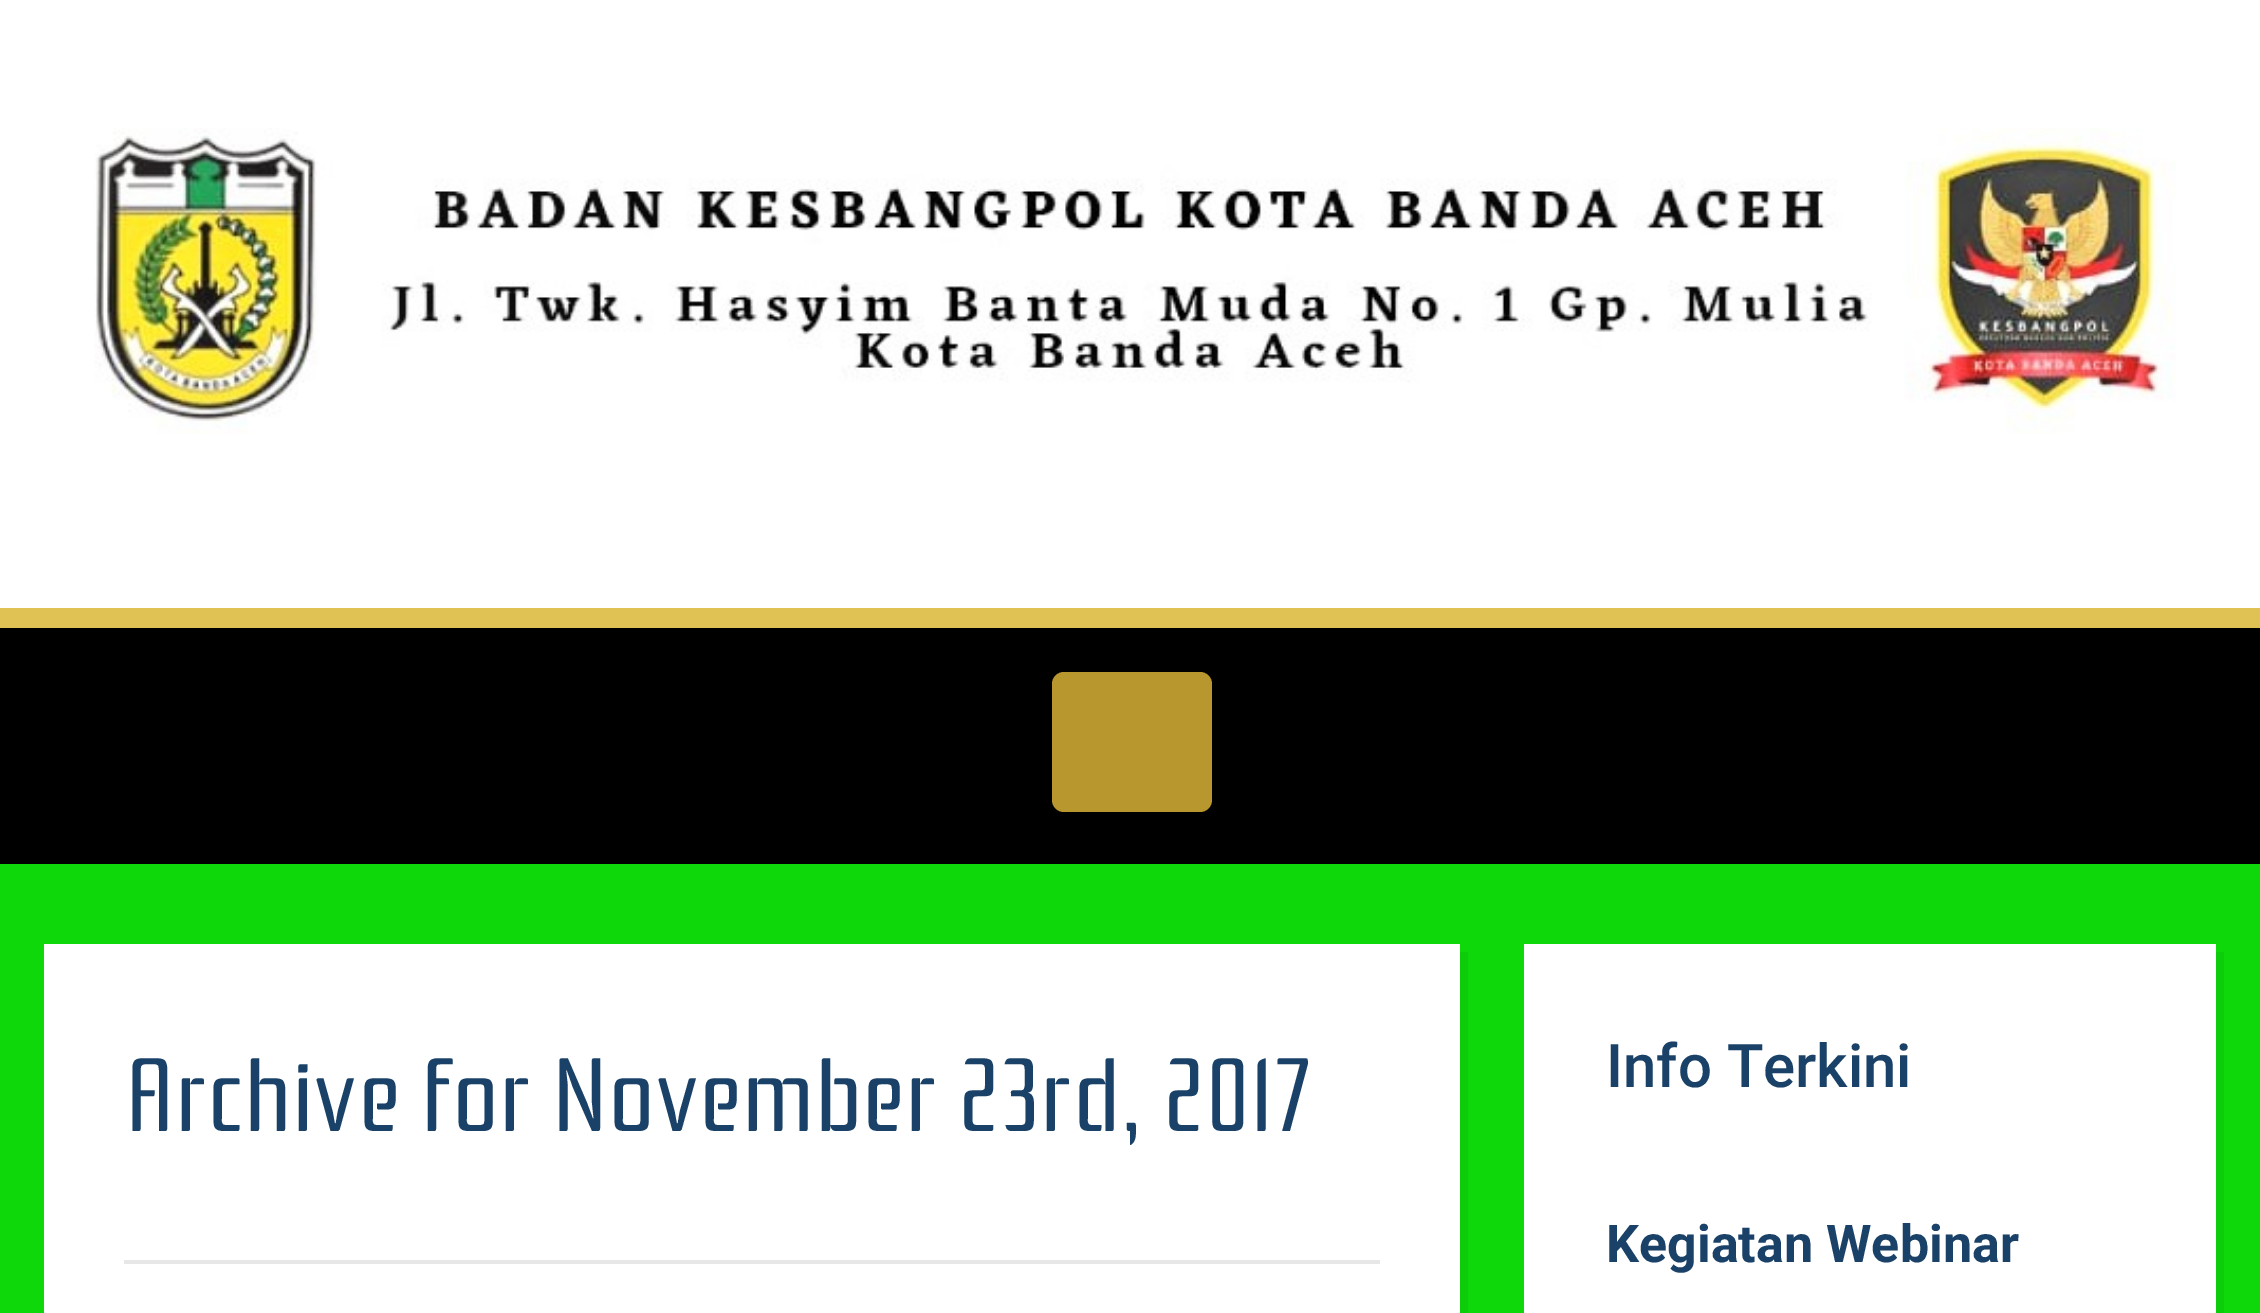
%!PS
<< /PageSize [2260 1313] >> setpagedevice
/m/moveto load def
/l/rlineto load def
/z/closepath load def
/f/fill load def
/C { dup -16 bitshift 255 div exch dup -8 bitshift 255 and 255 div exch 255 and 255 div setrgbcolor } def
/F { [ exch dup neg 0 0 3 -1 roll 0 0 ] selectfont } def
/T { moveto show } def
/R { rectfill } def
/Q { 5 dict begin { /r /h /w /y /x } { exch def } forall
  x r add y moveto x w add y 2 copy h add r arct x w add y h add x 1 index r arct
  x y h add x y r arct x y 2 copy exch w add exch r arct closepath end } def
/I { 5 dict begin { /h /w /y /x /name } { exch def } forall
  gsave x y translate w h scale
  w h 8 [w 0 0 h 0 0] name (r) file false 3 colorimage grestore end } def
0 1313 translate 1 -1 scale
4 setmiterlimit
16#0ED80A C
0 0 2260 1313 R
16#FFFFFF C
0 0 2260 608 R
(1.rgb) 94 128 2082 306 I
16#000000 C
0 628 2260 236 R
16#DFC253 C
0 608 2260 20 R
16#B9972F C
1052 672 160 140 12 Q f
16#0DCD0A C
52 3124 m 0 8 l 1416 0 l 0 -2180 l -8 0 l 0 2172 l z f
16#FFFFFF C
44 944 1416 369 R
/Rationale-Regular 104 F
16#1A4167 C
(Archive for November 23rd, 2017) 125 1131 T
16#E7E7E7 C
124 1260 1256 4 R
16#0DCD0A C
1532 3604 m 0 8 l 692 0 l 0 -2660 l -8 0 l 0 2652 l z f
16#FFFFFF C
1524 944 692 369 R
/Roboto-Medium 60 F
16#1A4167 C
(Info Terkini) 1606 1087 T
/Roboto-Bold 52 F
(Kegiatan Webinar) 1606 1262 T
showpage
